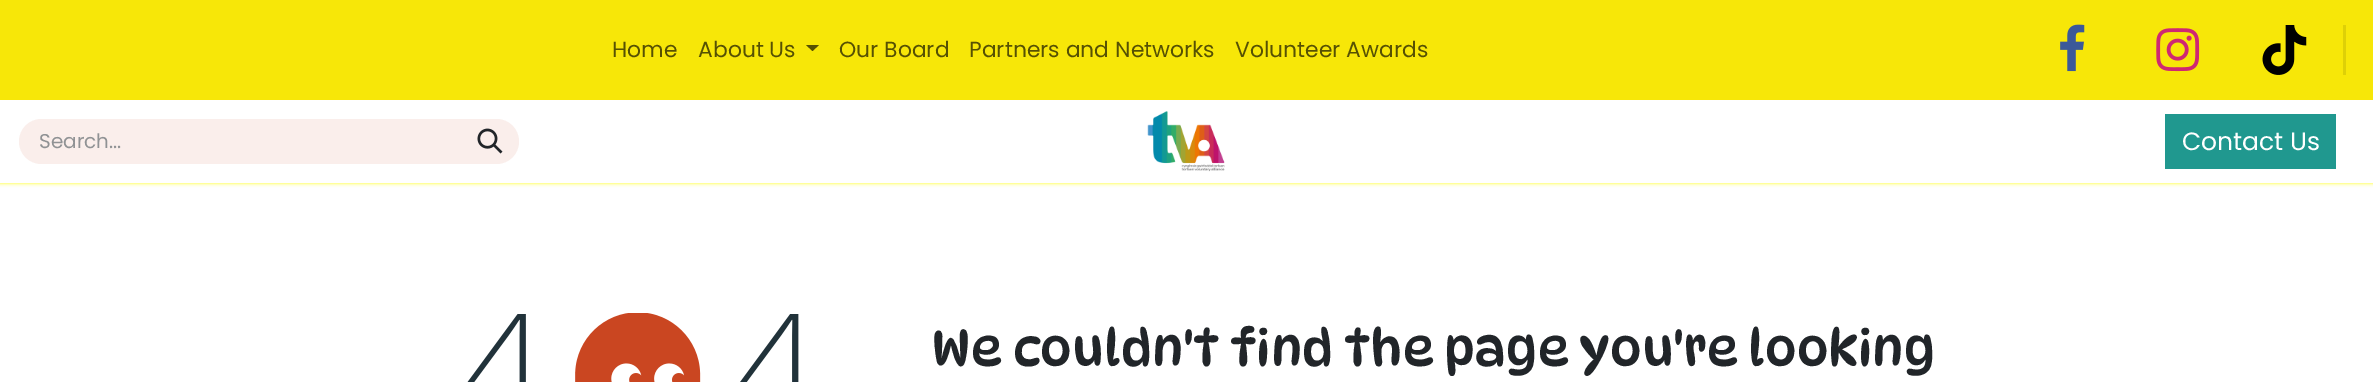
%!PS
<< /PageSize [2373 382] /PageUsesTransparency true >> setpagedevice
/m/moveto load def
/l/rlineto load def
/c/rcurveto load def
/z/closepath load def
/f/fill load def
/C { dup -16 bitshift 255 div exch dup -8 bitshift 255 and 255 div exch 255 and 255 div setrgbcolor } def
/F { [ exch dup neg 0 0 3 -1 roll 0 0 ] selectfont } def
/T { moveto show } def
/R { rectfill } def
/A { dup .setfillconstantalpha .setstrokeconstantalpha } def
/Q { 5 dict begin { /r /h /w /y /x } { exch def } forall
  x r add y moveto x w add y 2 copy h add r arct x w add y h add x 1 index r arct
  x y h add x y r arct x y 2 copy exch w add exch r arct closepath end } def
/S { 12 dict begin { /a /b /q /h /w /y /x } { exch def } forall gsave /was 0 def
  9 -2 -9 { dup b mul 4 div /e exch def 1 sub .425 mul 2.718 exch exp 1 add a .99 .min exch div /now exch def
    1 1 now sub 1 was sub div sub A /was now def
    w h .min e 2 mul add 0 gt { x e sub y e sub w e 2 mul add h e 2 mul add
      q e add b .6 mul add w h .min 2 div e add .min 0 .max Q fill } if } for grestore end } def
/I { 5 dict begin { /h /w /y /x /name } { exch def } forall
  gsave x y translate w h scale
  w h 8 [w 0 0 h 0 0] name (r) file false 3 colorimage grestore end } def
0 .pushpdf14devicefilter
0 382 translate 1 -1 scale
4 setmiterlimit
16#FFFFFF C
0 0 2373 382 R
16#FFFF00 C
0 0 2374 183 0 2 1 S
16#F7E708 C
0 0 2373 100 R
/Poppins-Regular 21.9 F
16#565103 C
(Home) 612 57 T
(About Us) 698 57 T
806 45 m 13 0 l -6.5 6 l z f
(Our Board) 839 57 T
(Partners and Networks) 969 57 T
(Volunteer Awards) 1235 57 T
(1.rgb) 2060 24 25 48 I
(2.rgb) 2156 28 44 44 I
(3.rgb) 2262 25 45 50 I
16#DED007 C
2343 25 3 50 R
16#FFFFFF C
0 100 2373 83 R
16#FAEEEB C
41.5 119 m 421.5 0 l 0 45 l -421.5 0 l -12.5 0 -22.5 -10 -22.5 -22.5 c 0 -12.5 10 -22.5 22.5 -22.5 c z f
/Poppins-Regular 20 F
16#909294 C
(Search...) 39 148 T
16#FAEEEB C
461 119 m 35.5 0 l 12.5 0 22.5 10 22.5 22.5 c 0 12.5 -10 22.5 -22.5 22.5 c -35.5 0 l z f
(4.rgb) 477 128 26 26 I
(5.rgb) 1147 111 78 61 I
16#20988F C
2165 114 171 55 R
/Poppins-Regular 25 F
16#FFFFFF C
(Contact Us) 2182 150 T
(6.rgb) 467 313 332 69 I
/DynaPuff-Regular 50 F
16#212529 C
(We couldn't find the page you're looking) 931 366 T
.poppdf14devicefilter showpage
